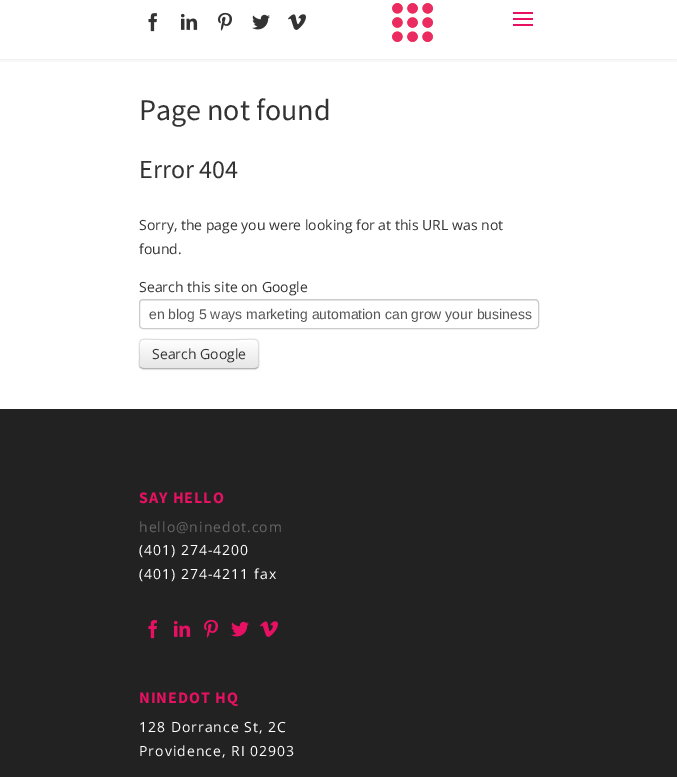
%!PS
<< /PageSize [677 777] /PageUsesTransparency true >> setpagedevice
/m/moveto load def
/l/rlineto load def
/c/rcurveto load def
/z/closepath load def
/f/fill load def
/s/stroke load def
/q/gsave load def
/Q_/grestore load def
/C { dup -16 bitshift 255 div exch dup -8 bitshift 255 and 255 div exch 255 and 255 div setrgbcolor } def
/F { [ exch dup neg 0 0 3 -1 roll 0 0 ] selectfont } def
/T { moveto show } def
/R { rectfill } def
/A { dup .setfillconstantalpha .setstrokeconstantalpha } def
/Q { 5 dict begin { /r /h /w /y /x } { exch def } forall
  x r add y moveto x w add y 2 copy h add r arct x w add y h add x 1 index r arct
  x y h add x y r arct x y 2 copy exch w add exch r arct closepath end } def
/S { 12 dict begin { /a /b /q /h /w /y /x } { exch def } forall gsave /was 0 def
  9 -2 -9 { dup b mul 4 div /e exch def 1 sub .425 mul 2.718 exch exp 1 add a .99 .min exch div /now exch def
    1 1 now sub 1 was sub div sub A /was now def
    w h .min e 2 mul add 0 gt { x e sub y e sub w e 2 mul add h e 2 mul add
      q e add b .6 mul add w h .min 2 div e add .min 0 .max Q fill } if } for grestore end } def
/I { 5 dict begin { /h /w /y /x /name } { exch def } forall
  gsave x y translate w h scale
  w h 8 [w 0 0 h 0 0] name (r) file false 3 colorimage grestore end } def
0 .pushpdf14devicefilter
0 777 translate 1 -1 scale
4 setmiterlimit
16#FFFFFF C
0 0 677 777 R
q
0 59 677 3 rectclip
16#000000 C
0 -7 677 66 0 3.5 .1 S
Q_
(1.rgb) 148 13 9 19 I
(2.rgb) 180 13 18 17 I
(3.rgb) 218 12 14 19 I
(4.rgb) 252 14 18 16 I
(5.rgb) 288 14 18 16 I
(6.rgb) 392 3 41 39 I
16#E81062 C
513 18 20 2 R
513 12 20 2 R
513 24 20 2 R
/SourceSansPro-Regular 30 F
16#333333 C
(Page not found) 139 120 T
/SourceSansPro-Regular 26 F
(Error 404) 139 178 T
/OpenSans-Regular 14 F
(Sorry, the page you were looking for at this URL was not) 139 230 T
(found.) 139 254 T
(Search this site on Google) 139 292 T
16#ECECEC C
143 301 m 392 0 l 2 0 3 1 3 3 c 0 -2 -1 -4 -3 -4 c -392 0 l -2 1 l -1 3 l 0 -2 1 -3 3 -3 c z f
16#CCCCCC C
139.5 299.5 399 29 3.5 Q s
/LiberationSans-Regular 14 F
16#555555 C
(en blog 5 ways marketing automation can grow your business) 149 319 T
16#000000 C
139 340 120 30 4 1 .05 S
16#F5F5F5 C
139 339 120 30 4 Q f
q
139 339 120 30 4 Q clip newpath
q 139 340 m 120 0 l 0 28 l -120 0 l z clip newpath
<< /ShadingType 2 /ColorSpace /DeviceRGB /Coords [199 340 199 368] /Extend [true true] /Function << /FunctionType 2 /Domain [0 1] /C0 [1 1 1] /C1 [.902 .902 .902] /N 1 >> >> shfill Q_
Q_
16#B3B3B3 C
257.5 367.5 m -2 1 l -94 0 l -18.5 0 l -2.5 -1 l s
0.1 A
16#000000 C
140.5 367.5 m -2.5 -2.5 -1 -7 -1 -10 c 0 -22.5 -3.5 -18 22 -18 c 75 0 l 25.5 0 22 -4.5 22 18 c 0 3 1.5 7.5 -1 10 c s
/OpenSans-Regular 14 F
1 A
16#333333 C
(Search Google) 152 359 T
16#222222 C
0 409 677 368 R
/SourceSansPro-Bold 16 F
16#E81062 C
139 503 m 1 0 (SAY HELLO) ashow
/OpenSans-Regular 14 F
16#666666 C
139 532 m 1 0 (hello@ninedot.com) ashow
16#FFFFFF C
139 555 m 1 0 (\(401\) 274-4200) ashow
139 579 m 1 0 (\(401\) 274-4211 fax) ashow
(7.rgb) 148 620 9 19 I
(8.rgb) 173 620 18 17 I
(9.rgb) 204 619 14 19 I
(10.rgb) 231 621 18 16 I
(11.rgb) 260 621 18 16 I
/SourceSansPro-Bold 16 F
16#E81062 C
139 703 m 1 0 (NINEDOT HQ) ashow
/OpenSans-Regular 14 F
16#FFFFFF C
139 732 m 1 0 (128 Dorrance St, 2C) ashow
139 756 m 1 0 (Providence, RI 02903) ashow
.poppdf14devicefilter showpage
